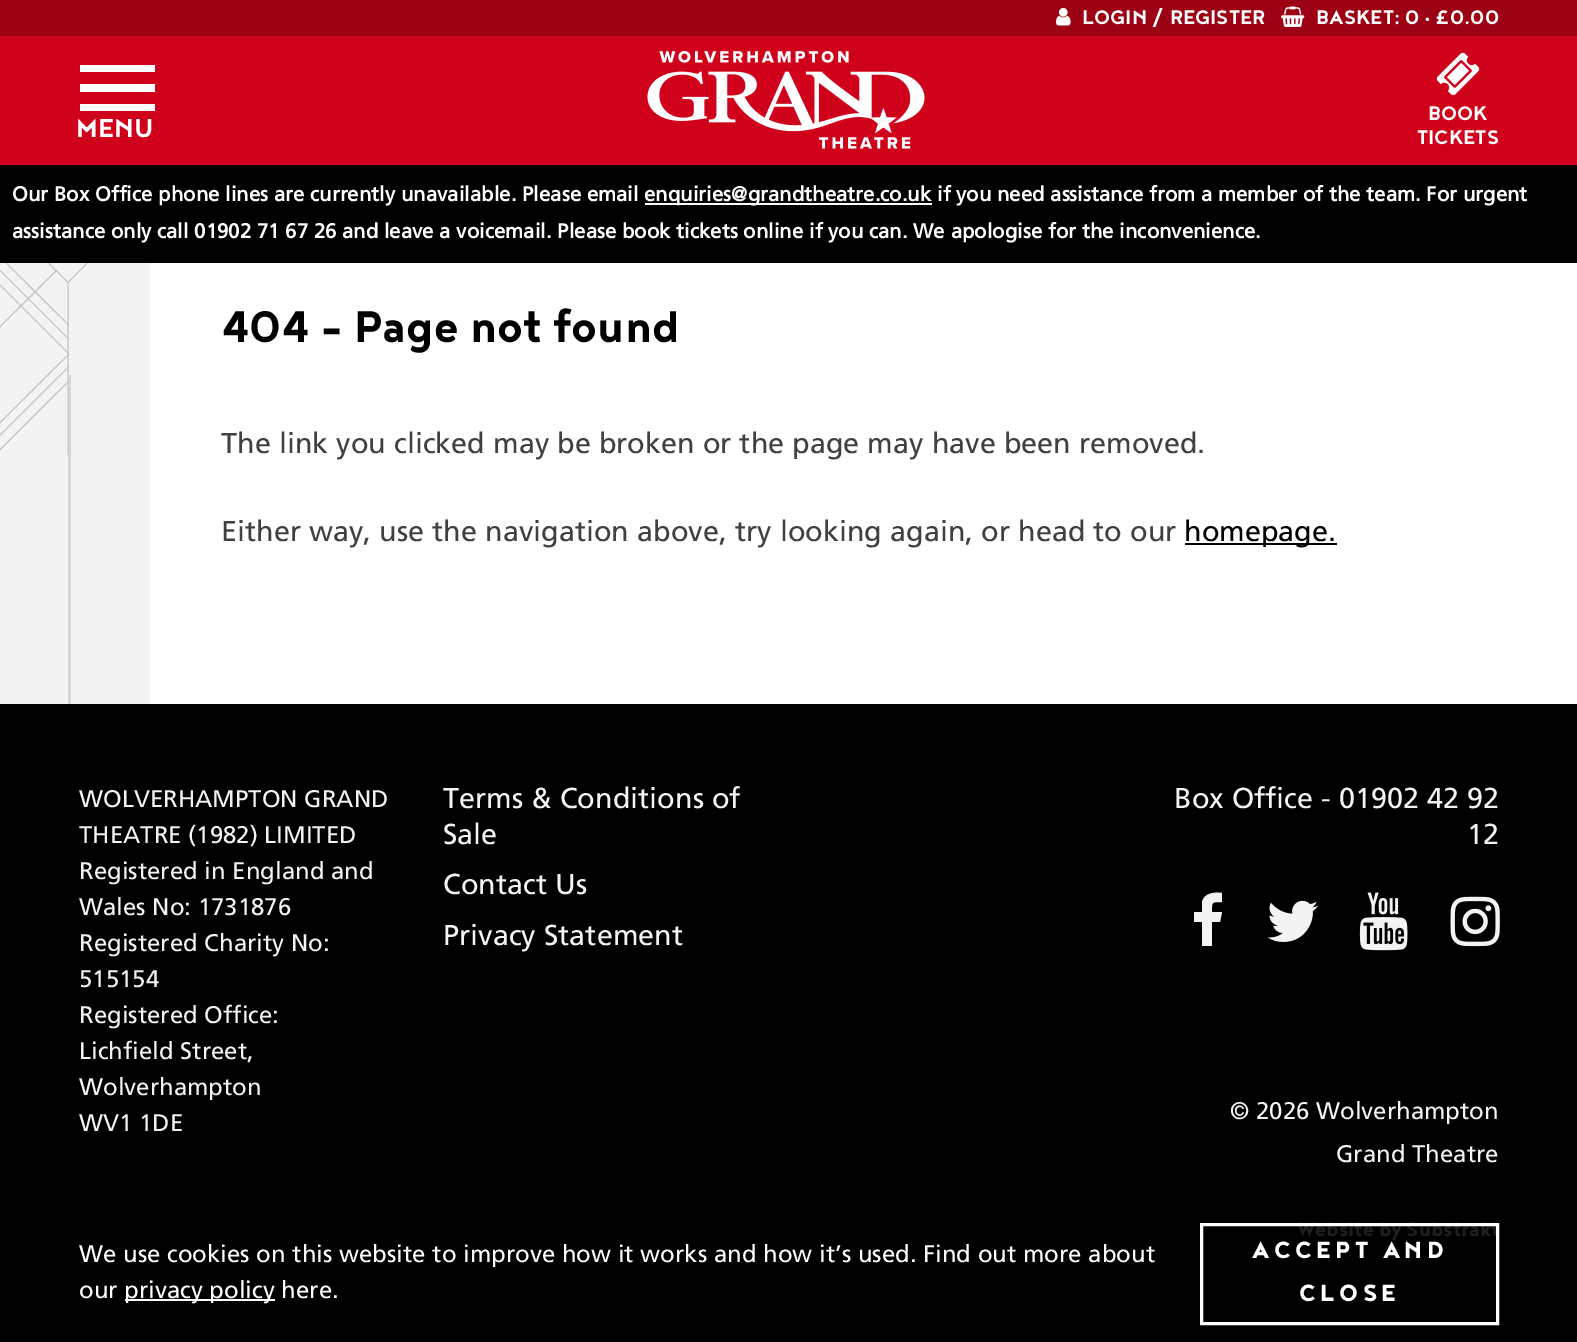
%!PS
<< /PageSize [1577 1342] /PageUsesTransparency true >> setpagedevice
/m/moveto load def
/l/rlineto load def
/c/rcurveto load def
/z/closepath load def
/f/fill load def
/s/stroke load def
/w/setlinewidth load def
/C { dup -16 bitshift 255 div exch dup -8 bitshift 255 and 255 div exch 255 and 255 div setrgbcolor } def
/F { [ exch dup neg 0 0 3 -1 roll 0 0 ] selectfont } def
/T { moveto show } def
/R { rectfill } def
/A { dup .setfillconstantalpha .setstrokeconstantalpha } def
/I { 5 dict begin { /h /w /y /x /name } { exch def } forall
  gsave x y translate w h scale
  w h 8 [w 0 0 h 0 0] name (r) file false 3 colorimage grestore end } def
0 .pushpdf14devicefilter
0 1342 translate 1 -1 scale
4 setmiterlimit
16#F3F3F3 C
0 0 1577 1342 R
16#C2C2C2 C
2 setlinecap
68 150.5 m 0 73 l 68 282.5 m 0 172 l s
16#D0021B C
0 36 1577 129 R
16#9D0214 C
0 0 1577 36 R
(1.rgb) 1056 8 15 18 I
/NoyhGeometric-Bold 24 F
16#FFFFFF C
(LOGIN / REGISTER) 1082 24 T
(2.rgb) 1281 6 24 21 I
(BASKET: 0 • £0.00) 1316 24 T
80 65 75 7 R
80 84 75 8 R
80 104 75 7 R
/NoyhGeometric-Bold 31.5 F
(MENU) 76 137 T
(3.rgb) 647 51 278 98 I
(4.rgb) 1436 52 44 44 I
/NoyhGeometric-Bold 24 F
(BOOK) 1428 120 T
(TICKETS) 1417 144 T
16#C2C2C2 C
0 setlinecap
68 223.5 m 29.5 29.5 l -29.5 29.5 l -29.5 -29.5 l z s
2 setlinecap
-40.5 216.5 m 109 108.5 l -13 171 m 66 66 l -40.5 230 m 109 109 l -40.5 244.5 m 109 109 l -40.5 463 m 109 -108.5 l -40.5 367 m 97 -96.5 l -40.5 475.5 m 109 -108.5 l -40.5 490 m 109 -108.5 l s
16#000000 C
0 165 1577 98 R
/Frutiger-Bold 20.4 F
16#FFFFFF C
(Our Box Office phone lines are currently unavailable. Please email) 12 201 T
645 203 287 2 R
(enquiries@grandtheatre.co.uk if you need assistance from a member of the team. For urgent) 644 201 T
(assistance only call 01902 71 67 26 and leave a voicemail. Please book tickets online if you can. We apologise for the inconvenience.) 12 238 T
150 263 1427 441 R
/NoyhGeometric-Bold 54 F
16#000000 C
(404 - Page not found) 221 342 T
/Frutiger-Regular 28.8 F
16#404040 C
(The link you clicked may be broken or the page may have been removed.) 221 453 T
(Either way, use the navigation above, try looking again, or head to our) 221 541 T
16#000000 C
1185 543 152 2 R
(homepage.) 1184 541 T
0.75 A
16#CCCCCC C
68 375 3 329 R
1 A
16#000000 C
0 704 1577 638 R
/Frutiger-Regular 24 F
16#F3F3F3 C
(WOLVERHAMPTON GRAND) 79 807 T
(THEATRE \(1982\) LIMITED) 79 843 T
(Registered in England and) 79 879 T
(Wales No: 1731876) 79 915 T
(Registered Charity No:) 79 951 T
(515154) 79 987 T
(Registered Office:) 79 1023 T
(Lichfield Street,) 79 1059 T
(Wolverhampton) 79 1095 T
(WV1 1DE) 79 1131 T
/Frutiger-Regular 28.8 F
(Terms & Conditions of) 443 808 T
(Sale) 443 844 T
(Contact Us) 443 894 T
(Privacy Statement) 443 945 T
(Box Office - 01902 42 92) 1174 808 T
(12) 1467 844 T
1222 893 m 0 9 l -11 0 -10 0 -10 10 c 10 0 l -2 10 l -8 0 l 0 24 l -10 0 l 0 -24 l -8 0 l 0 -10 l 8 0 l 0 -10 l 2 -9 12 -10 20 -9 c z f
(5.rgb) 1267 900 51 42 I
(6.rgb) 1359 892 49 59 I
(7.rgb) 1450 896 50 51 I
/Frutiger-Regular 24 F
(© 2026 Wolverhampton) 1230 1119 T
(Grand Theatre) 1336 1162 T
/NoyhGeometric-Bold 24 F
16#1F1F1F C
(Website by Substrakt) 1297 1236 T
/Frutiger-Regular 24 F
16#FFFFFF C
(We use cookies on this website to improve how it works and how it’s used. Find out more about) 79 1262 T
(our) 79 1298 T
125 1299 150 2 R
(privacy policy here.) 124 1298 T
3 w
0 setlinecap
1201.5 1224.5 296 99 rectstroke
/NoyhGeometric-Black 28.8 F
1252 1258 m 4.5 0 (ACCEPT AND) ashow
1299 1301 m 4.5 0 (CLOSE) ashow
.poppdf14devicefilter showpage
